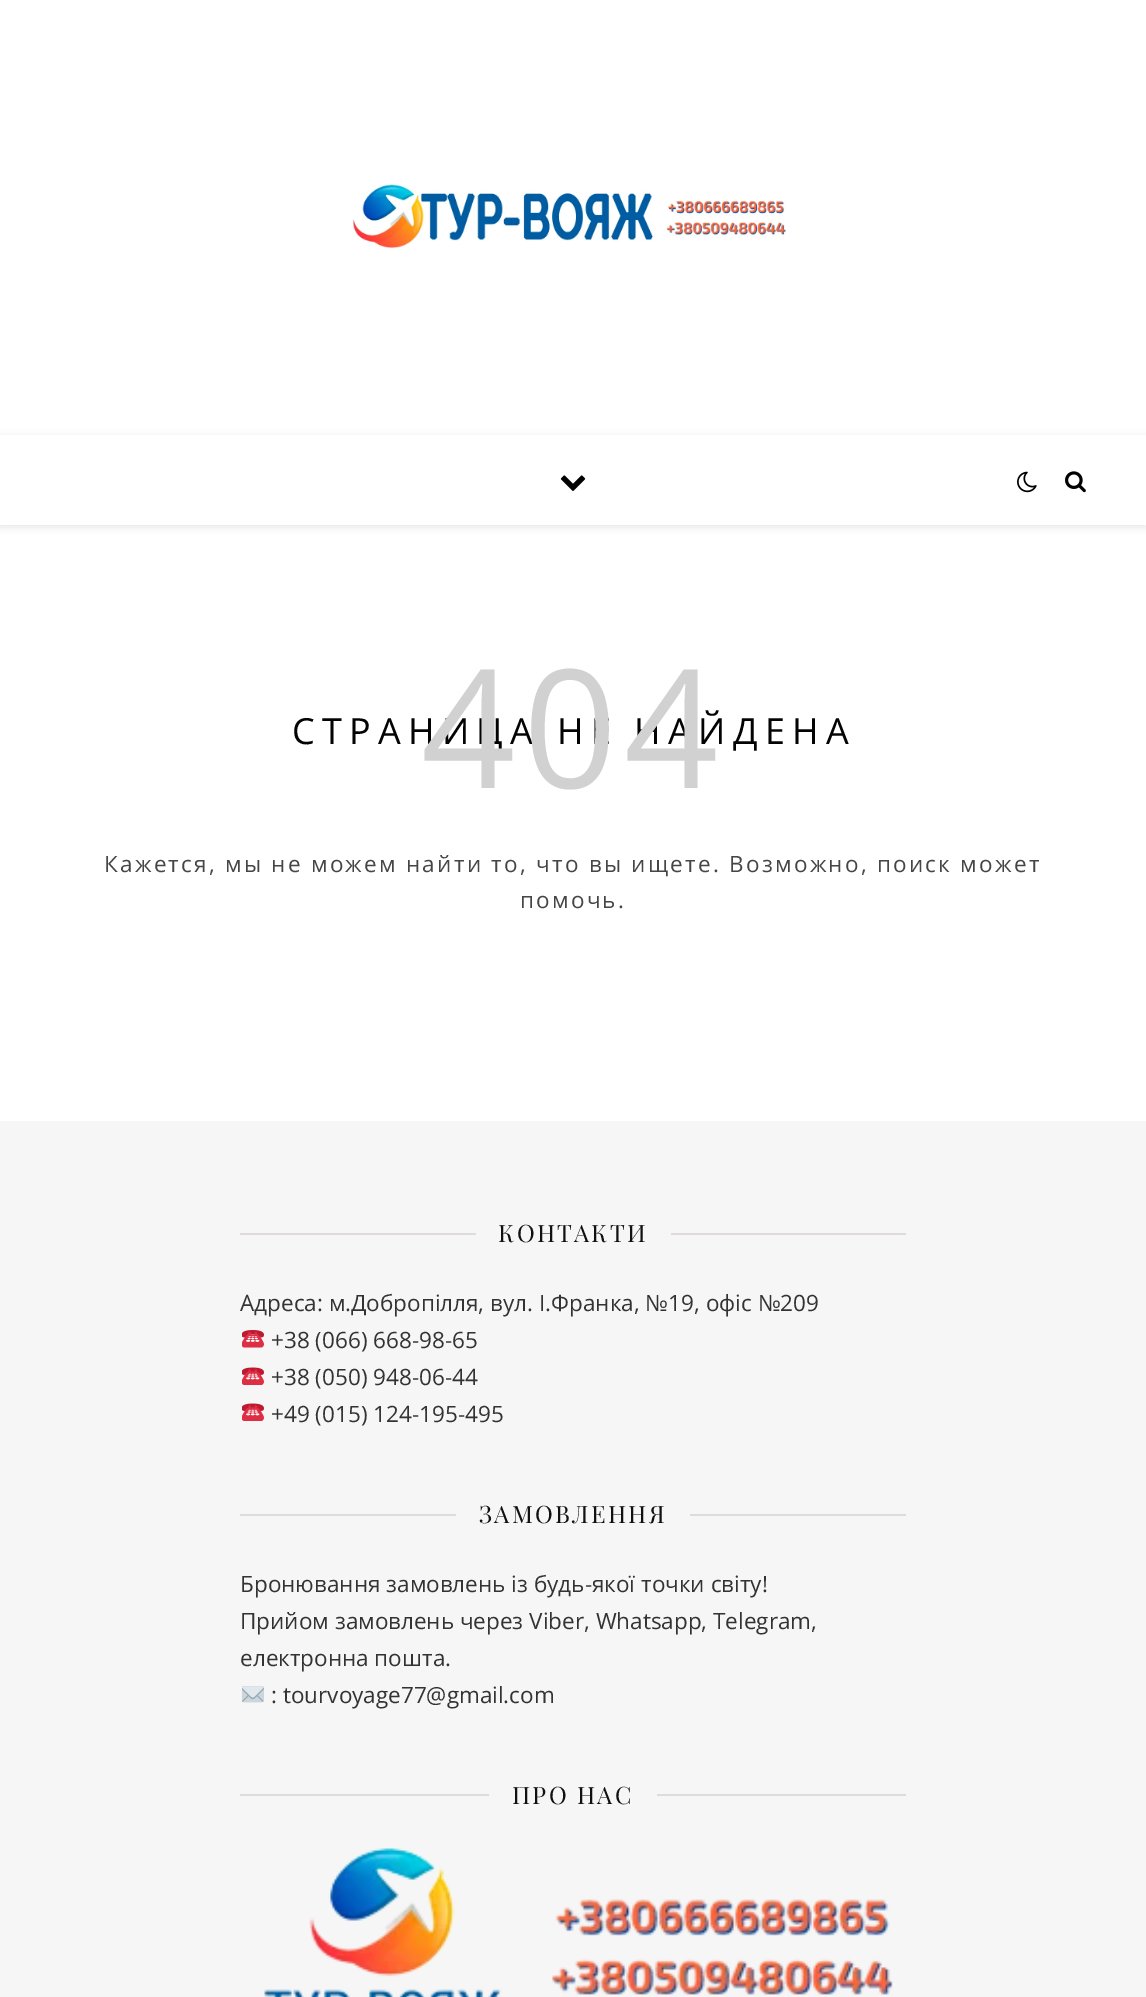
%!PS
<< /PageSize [1146 1997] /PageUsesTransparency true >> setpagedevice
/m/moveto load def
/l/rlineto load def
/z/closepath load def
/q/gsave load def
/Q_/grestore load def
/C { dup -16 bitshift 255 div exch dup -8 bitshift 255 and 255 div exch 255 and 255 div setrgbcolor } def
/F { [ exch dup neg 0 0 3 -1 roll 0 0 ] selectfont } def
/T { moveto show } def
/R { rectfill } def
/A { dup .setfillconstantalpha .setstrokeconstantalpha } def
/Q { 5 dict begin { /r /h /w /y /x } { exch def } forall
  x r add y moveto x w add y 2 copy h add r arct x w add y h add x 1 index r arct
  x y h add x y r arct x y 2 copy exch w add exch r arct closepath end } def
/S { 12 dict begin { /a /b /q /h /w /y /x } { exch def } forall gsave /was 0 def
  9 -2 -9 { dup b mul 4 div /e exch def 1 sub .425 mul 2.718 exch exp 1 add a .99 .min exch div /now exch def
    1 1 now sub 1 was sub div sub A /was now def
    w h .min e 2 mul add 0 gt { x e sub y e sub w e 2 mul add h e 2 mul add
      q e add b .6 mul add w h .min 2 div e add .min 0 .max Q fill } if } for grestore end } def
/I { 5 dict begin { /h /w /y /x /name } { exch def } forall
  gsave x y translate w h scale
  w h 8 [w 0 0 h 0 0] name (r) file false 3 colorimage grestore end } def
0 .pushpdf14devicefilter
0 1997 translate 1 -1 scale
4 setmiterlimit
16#FFFFFF C
0 0 1146 1997 R
(1.rgb) 351 184 435 65 I
q
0 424 m 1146 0 l 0 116 l -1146 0 l z 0 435 m 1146 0 l 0 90 l -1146 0 l z eoclip newpath
16#000000 C
0 437 1146 90 0 4 .1 S
Q_
(2.rgb) 560 475 26 16 I
(3.rgb) 1017 471 20 22 I
(4.rgb) 1065 471 21 22 I
/OpenSans-Regular 36 F
16#030303 C
292 744 m 7.25 0 (СТРАНИЦА НЕ НАЙДЕНА) ashow
/OpenSans-Regular 165 F
16#D1D1D1 C
421 788 m 7.25 0 (404) ashow
/OpenSans-Regular 22.5 F
16#464646 C
104 872 m 2.25 0 (Кажется, мы не можем найти то, что вы ищете. Возможно, поиск может) ashow
520 908 m 2.25 0 (помочь.) ashow
16#F6F6F6 C
0 1121 1146 876 R
16#E0DBDB C
240 1233 236 2 R
/PlayfairDisplay-Regular 24 F
16#111111 C
498 1242 m 2.25 0 (КОНТАКТИ) ashow
16#E0DBDB C
671 1233 235 2 R
/OpenSans-Regular 22.5 F
16#333333 C
(Адреса: м.Добропілля, вул. І.Франка, №19, офіс №209) 240 1311 T
(5.rgb) 242 1330 22 18 I
(+38 \(066\) 668-98-65) 271 1348 T
(6.rgb) 242 1367 22 18 I
(+38 \(050\) 948-06-44) 271 1385 T
(6.rgb) 242 1403 22 18 I
(+49 \(015\) 124-195-495) 271 1422 T
16#E0DBDB C
240 1514 216 2 R
/PlayfairDisplay-Regular 24 F
16#111111 C
479 1523 m 2.25 0 (ЗАМОВЛЕННЯ) ashow
16#E0DBDB C
690 1514 216 2 R
/OpenSans-Regular 22.5 F
16#333333 C
(Бронювання замовлень із будь-якої точки світу!) 240 1592 T
(Прийом замовлень через Viber, Whatsapp, Telegram,) 240 1629 T
(електронна пошта.) 240 1666 T
(7.rgb) 242 1686 22 17 I
(: tourvoyage77@gmail.com) 271 1703 T
16#E0DBDB C
240 1794 249 2 R
/PlayfairDisplay-Regular 24 F
16#111111 C
512 1804 m 2.25 0 (ПРО НАС) ashow
16#E0DBDB C
657 1794 249 2 R
(8.rgb) 264 1848 629 149 I
.poppdf14devicefilter showpage
